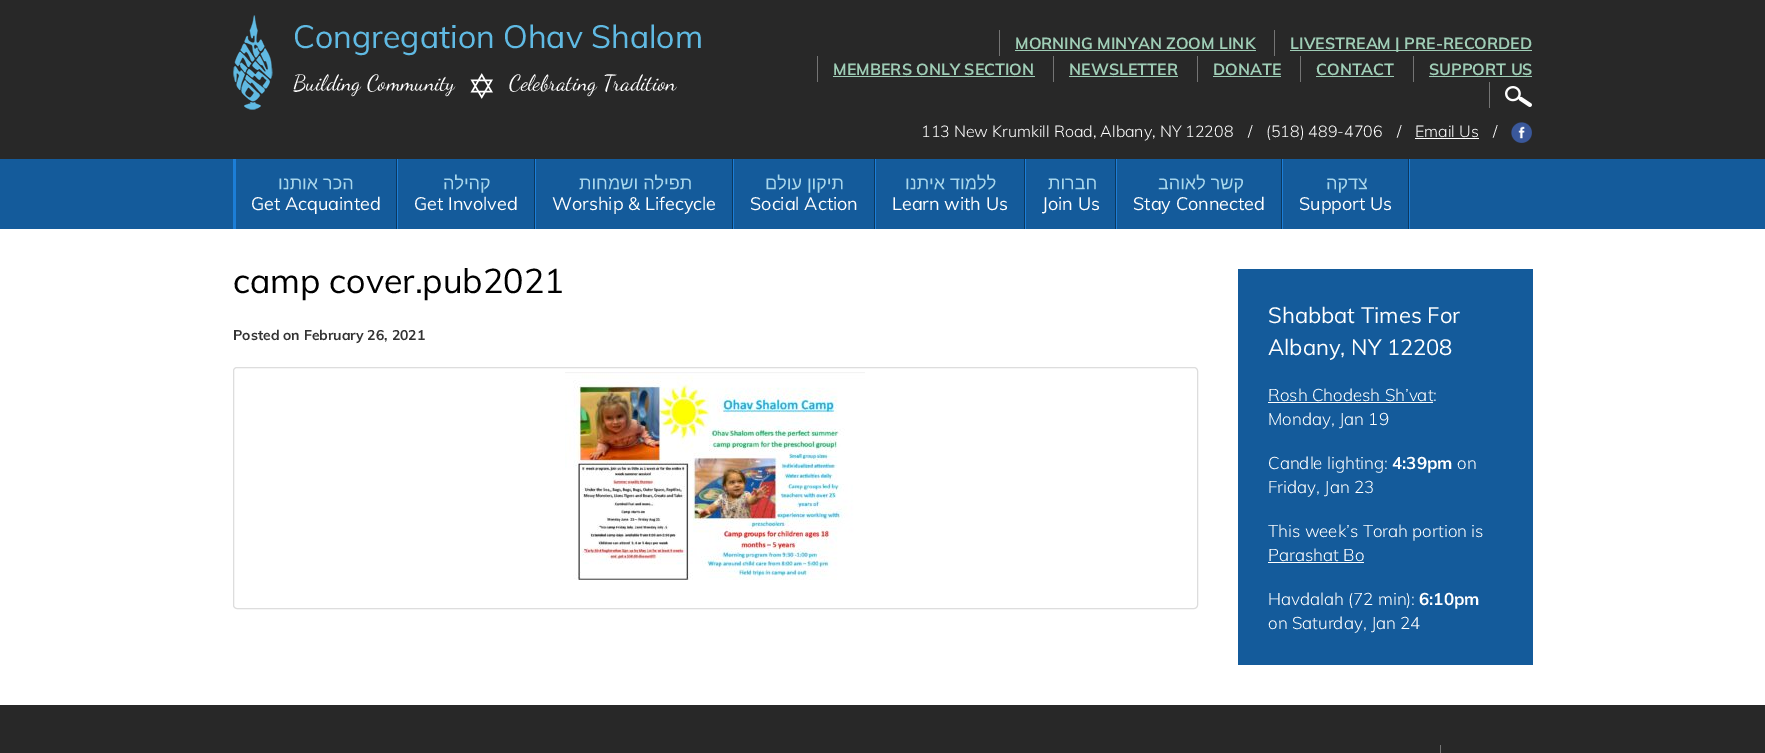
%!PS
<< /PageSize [1765 753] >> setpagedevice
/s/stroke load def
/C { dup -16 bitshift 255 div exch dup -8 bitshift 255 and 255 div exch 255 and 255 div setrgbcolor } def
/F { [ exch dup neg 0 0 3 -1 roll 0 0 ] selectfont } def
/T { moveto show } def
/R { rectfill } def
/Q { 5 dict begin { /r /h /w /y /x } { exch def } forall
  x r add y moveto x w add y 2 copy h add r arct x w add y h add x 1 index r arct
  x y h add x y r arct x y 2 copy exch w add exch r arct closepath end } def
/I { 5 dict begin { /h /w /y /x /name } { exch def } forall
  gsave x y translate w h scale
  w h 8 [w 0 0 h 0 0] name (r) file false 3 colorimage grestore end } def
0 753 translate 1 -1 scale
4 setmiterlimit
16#282828 C
0 0 1765 753 R
(1.rgb) 233 15 40 95 I
/Muli-Regular 32 F
16#60BAE3 C
(Congregation Ohav Shalom) 293 48 T
/DancingScript-Regular 22 F
16#FFFFFF C
(Building Community) 293 90 T
(2.rgb) 470 73 23 26 I
(Celebrating Tradition) 509 90 T
16#747474 C
999 30 1 26 R
/Muli-Bold 16 F
16#9FCDB6 C
(MORNING MINYAN ZOOM LINK) 1015 49 T
1015 50 241 1 R
16#747474 C
1274 30 1 26 R
16#9FCDB6 C
1290 50 242 1 R
(LIVESTREAM | PRE-RECORDED) 1290 49 T
16#747474 C
817 56 1 26 R
16#9FCDB6 C
(MEMBERS ONLY SECTION) 833 75 T
833 76 202 1 R
16#747474 C
1053 56 1 26 R
16#9FCDB6 C
(NEWSLETTER) 1069 75 T
1069 76 109 1 R
16#747474 C
1197 56 1 26 R
16#9FCDB6 C
(DONATE) 1213 75 T
1213 76 68 1 R
16#747474 C
1300 56 1 26 R
16#9FCDB6 C
(CONTACT) 1316 75 T
1316 76 78 1 R
16#747474 C
1413 56 1 26 R
16#9FCDB6 C
(SUPPORT US) 1429 75 T
1429 76 103 1 R
16#747474 C
1489 82 1 26 R
(3.rgb) 1505 86 27 21 I
/Muli-Light 16 F
16#FFFFFF C
(113 New Krumkill Road, Albany, NY 12208) 921 137 T
(/) 1248 137 T
(\(518\) 489-4706) 1266 137 T
(/) 1397 137 T
(Email Us) 1415 137 T
1415 138 64 1 R
(/) 1493 137 T
(4.rgb) 1511 122 21 21 I
16#145B9B C
0 159 1765 70 R
16#1C7ED7 C
233 159 3 70 R
(5.rgb) 279 159 119 70 I
/Muli-Regular 18 F
16#FFFFFF C
(Get Acquainted) 251 210 T
(6.rgb) 444 159 92 70 I
(Get Involved) 414 210 T
(7.rgb) 579 159 155 70 I
(Worship & Lifecycle) 552 210 T
(8.rgb) 766 159 110 70 I
(Social Action) 750 210 T
(9.rgb) 906 159 120 70 I
(Learn with Us) 892 210 T
(10.rgb) 1048 159 69 70 I
(Join Us) 1042 210 T
(11.rgb) 1158 159 125 70 I
(Stay Connected) 1133 210 T
(12.rgb) 1327 159 83 70 I
(Support Us) 1299 210 T
0 229 1765 476 R
/Muli-Regular 34 F
16#000000 C
(camp cover.pub2021) 233 293 T
/Muli-Bold 14 F
16#333333 C
(Posted on February 26, 2021) 233 340 T
16#DDDDDD C
233.5 367.5 964 241 3.5 Q s
(13.rgb) 565 372 300 208 I
16#145B9B C
1238 269 295 396 R
/Muli-Regular 22 F
16#FFFFFF C
(Shabbat Times For) 1268 323 T
(Albany, NY 12208) 1268 355 T
/Muli-Light 17 F
(Rosh Chodesh Sh’vat:) 1268 401 T
1268 402 165 1 R
(Monday, Jan 19) 1268 425 T
(Candle lighting:) 1268 469 T
/Muli-Bold 17 F
(4:39pm) 1392 469 T
/Muli-Light 17 F
(on) 1457 469 T
(Friday, Jan 23) 1268 493 T
(This week’s Torah portion is) 1268 537 T
(Parashat Bo) 1268 561 T
1268 562 96 1 R
(Havdalah \(72 min\):) 1268 605 T
/Muli-Bold 17 F
(6:10pm) 1419 605 T
/Muli-Light 17 F
(on Saturday, Jan 24) 1268 629 T
16#747474 C
1440 745 1 8 R
showpage
